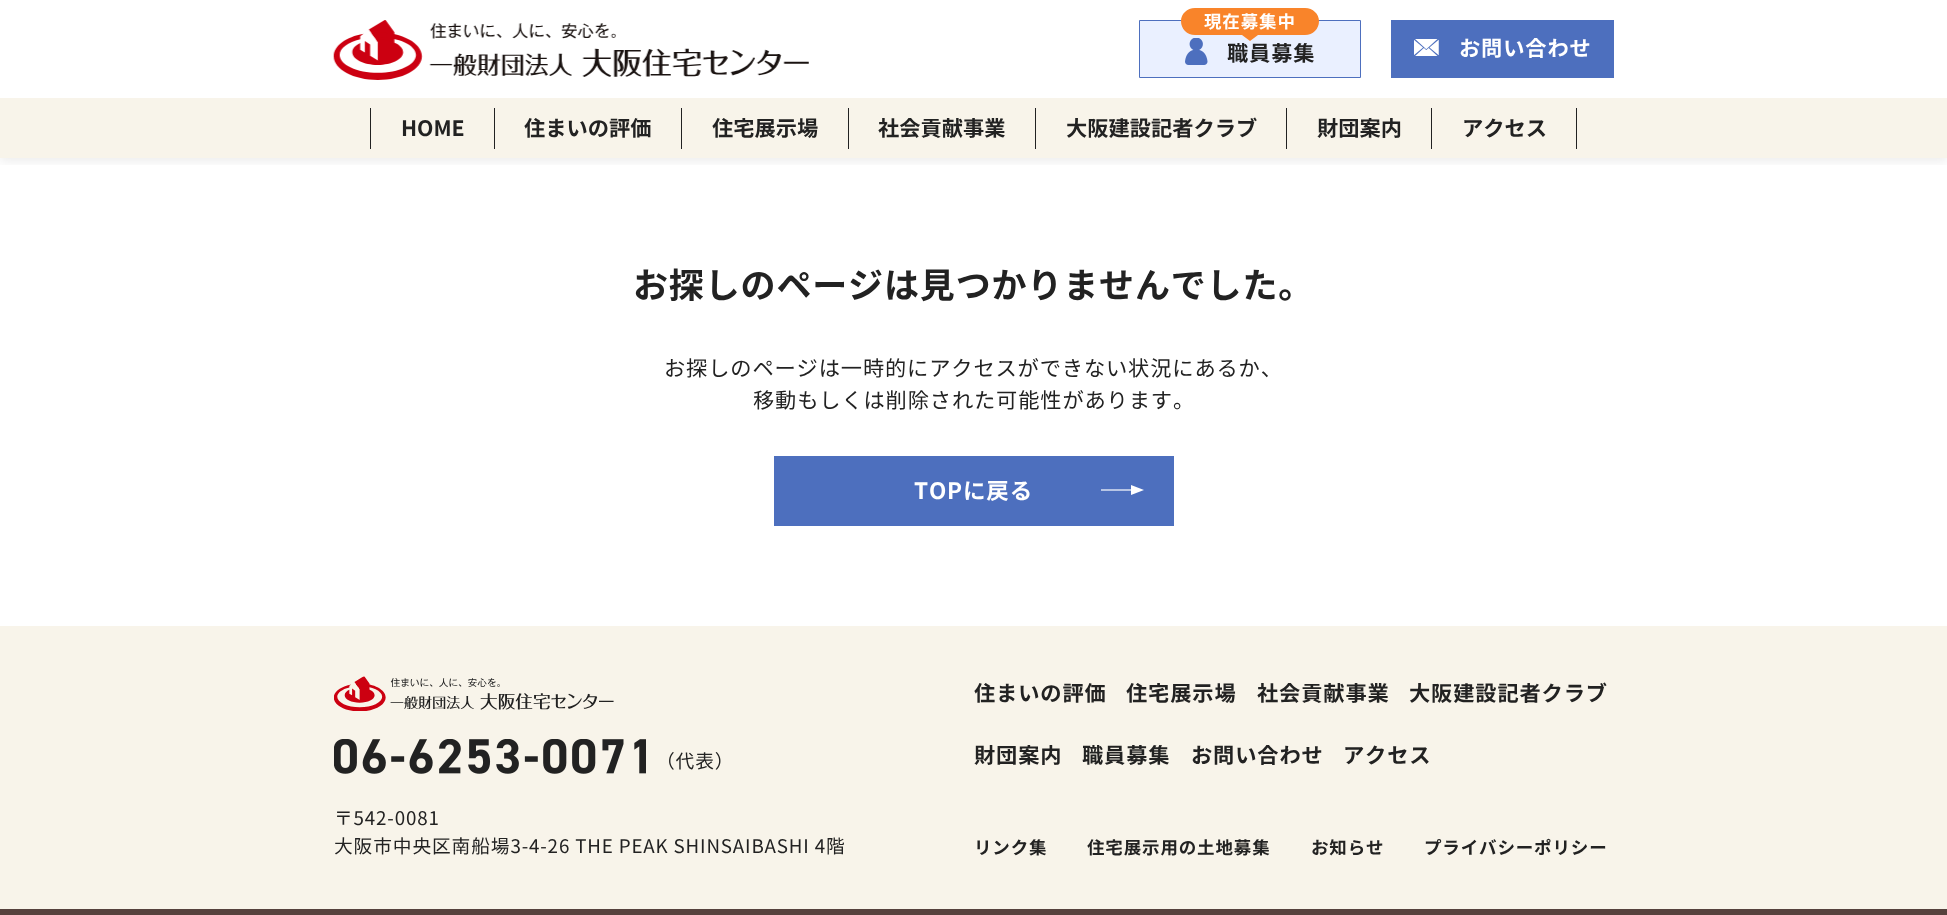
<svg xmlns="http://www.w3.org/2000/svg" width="1947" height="915">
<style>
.a{font:bold 17.5px Noto Sans JP;letter-spacing:0.85px;fill:#fff}
.b{font:bold 21.25px Noto Sans JP;letter-spacing:0.85px;fill:#222}
.c{font:bold 21.25px Noto Sans JP;letter-spacing:0.85px;fill:#fff}
.d{font:bold 21.25px Noto Sans JP;fill:#222}
.e{font:bold 35px Noto Sans JP;letter-spacing:0.85px;fill:#222}
.f{font:21.25px Noto Sans JP;letter-spacing:0.85px;fill:#222}
.g{font:bold 22.5px Noto Sans JP;letter-spacing:0.85px;fill:#fff}
.h{font:18.75px Noto Sans JP;letter-spacing:0.85px;fill:#222}
.i{font:bold 17.5px Noto Sans JP;letter-spacing:0.85px;fill:#222}
</style>
<defs>
<clipPath id="clip1"><path d="M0 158h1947v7H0z"/></clipPath>
</defs>
<rect width="100%" height="100%" fill="#fff"/>
<g clip-path="url(#clip1)">
<path fill="#00000014" filter="blur(6px)" d="M0 4h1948v157H0z"/>
</g>
<image href="1.png" x="333" y="20" width="476" height="60"/>
<path fill="#eaf0ff" stroke="#4d6fbe" d="M1139.5 20.5h221v57H1139.5z"/>
<image href="2.png" x="1185" y="38" width="23" height="27"/>
<path fill="#f9842a" d="M1242 35h-47c-8 0-14-6-14-14c0-7 6-13 14-13h110c8 0 14 6 14 13c0 8-6 14-14 14h-47l-8 6z"/>
<path fill="#4d6fbe" d="M1391 20h223v58H1391z"/>
<image href="3.png" x="1414" y="39" width="25" height="17"/>
<path fill="#f8f4ea" d="M0 98h1947v60H0z"/>
<path fill="#222" d="M370 108h1v41H370z"/>
<path fill="#222" d="M494 108h1v41H494z"/>
<path fill="#222" d="M681 108h1v41H681z"/>
<path fill="#222" d="M848 108h1v41H848z"/>
<path fill="#222" d="M1035 108h1v41H1035z"/>
<path fill="#222" d="M1286 108h1v41H1286z"/>
<path fill="#222" d="M1431 108h1v41H1431z"/>
<path fill="#222" d="M1576 108h1v41H1576z"/>
<path fill="#4d6fbe" d="M774 456h400v70H774z"/>
<path fill="#fff" d="M1144 490l-13 5v-10z"/>
<path fill="none" stroke="#fff" stroke-width="1.2" d="M1131 490h-30"/>
<path fill="#f8f4ea" d="M0 626h1947v283H0z"/>
<image href="4.png" x="334" y="676" width="280" height="35"/>
<image href="5.png" x="334" y="739" width="312" height="35"/>
<path fill="#56423d" d="M0 909h1947v6H0z"/>
<text class="a" x="1204" y="28">現在募集中</text>
<text class="b" x="1227" y="61">職員募集</text>
<text class="c" x="1459" y="56">お問い合わせ</text>
<text class="d" x="401" y="136">HOME</text>
<text class="d" x="524" y="136">住まいの評価</text>
<text class="d" x="712" y="136">住宅展示場</text>
<text class="d" x="878" y="136">社会貢献事業</text>
<text class="d" x="1066" y="136">大阪建設記者クラブ</text>
<text class="d" x="1317" y="136">財団案内</text>
<text class="d" x="1462" y="136">アクセス</text>
<text class="e" x="633" y="298">お探しのページは見つかりませんでした。</text>
<text class="f" x="664" y="376">お探しのページは一時的にアクセスができない状況にあるか、</text>
<text class="f" x="753" y="408">移動もしくは削除された可能性があります。</text>
<text class="g" x="914" y="499">TOPに戻る</text>
<text class="b" x="974" y="701">住まいの評価</text>
<text class="b" x="1126" y="701">住宅展示場</text>
<text class="b" x="1257" y="701">社会貢献事業</text>
<text class="b" x="1409" y="701">大阪建設記者クラブ</text>
<text class="b" x="974" y="763">財団案内</text>
<text class="b" x="1082" y="763">職員募集</text>
<text class="b" x="1191" y="763">お問い合わせ</text>
<text class="b" x="1343" y="763">アクセス</text>
<text class="h" x="656" y="768">（代表）</text>
<text class="h" x="334" y="825">〒542-0081</text>
<text class="h" x="334" y="853">大阪市中央区南船場3-4-26 THE PEAK SHINSAIBASHI 4階</text>
<text class="i" x="974" y="854">リンク集</text>
<text class="i" x="1087" y="854">住宅展示用の土地募集</text>
<text class="i" x="1311" y="854">お知らせ</text>
<text class="i" x="1424" y="854">プライバシーポリシー</text>
</svg>
